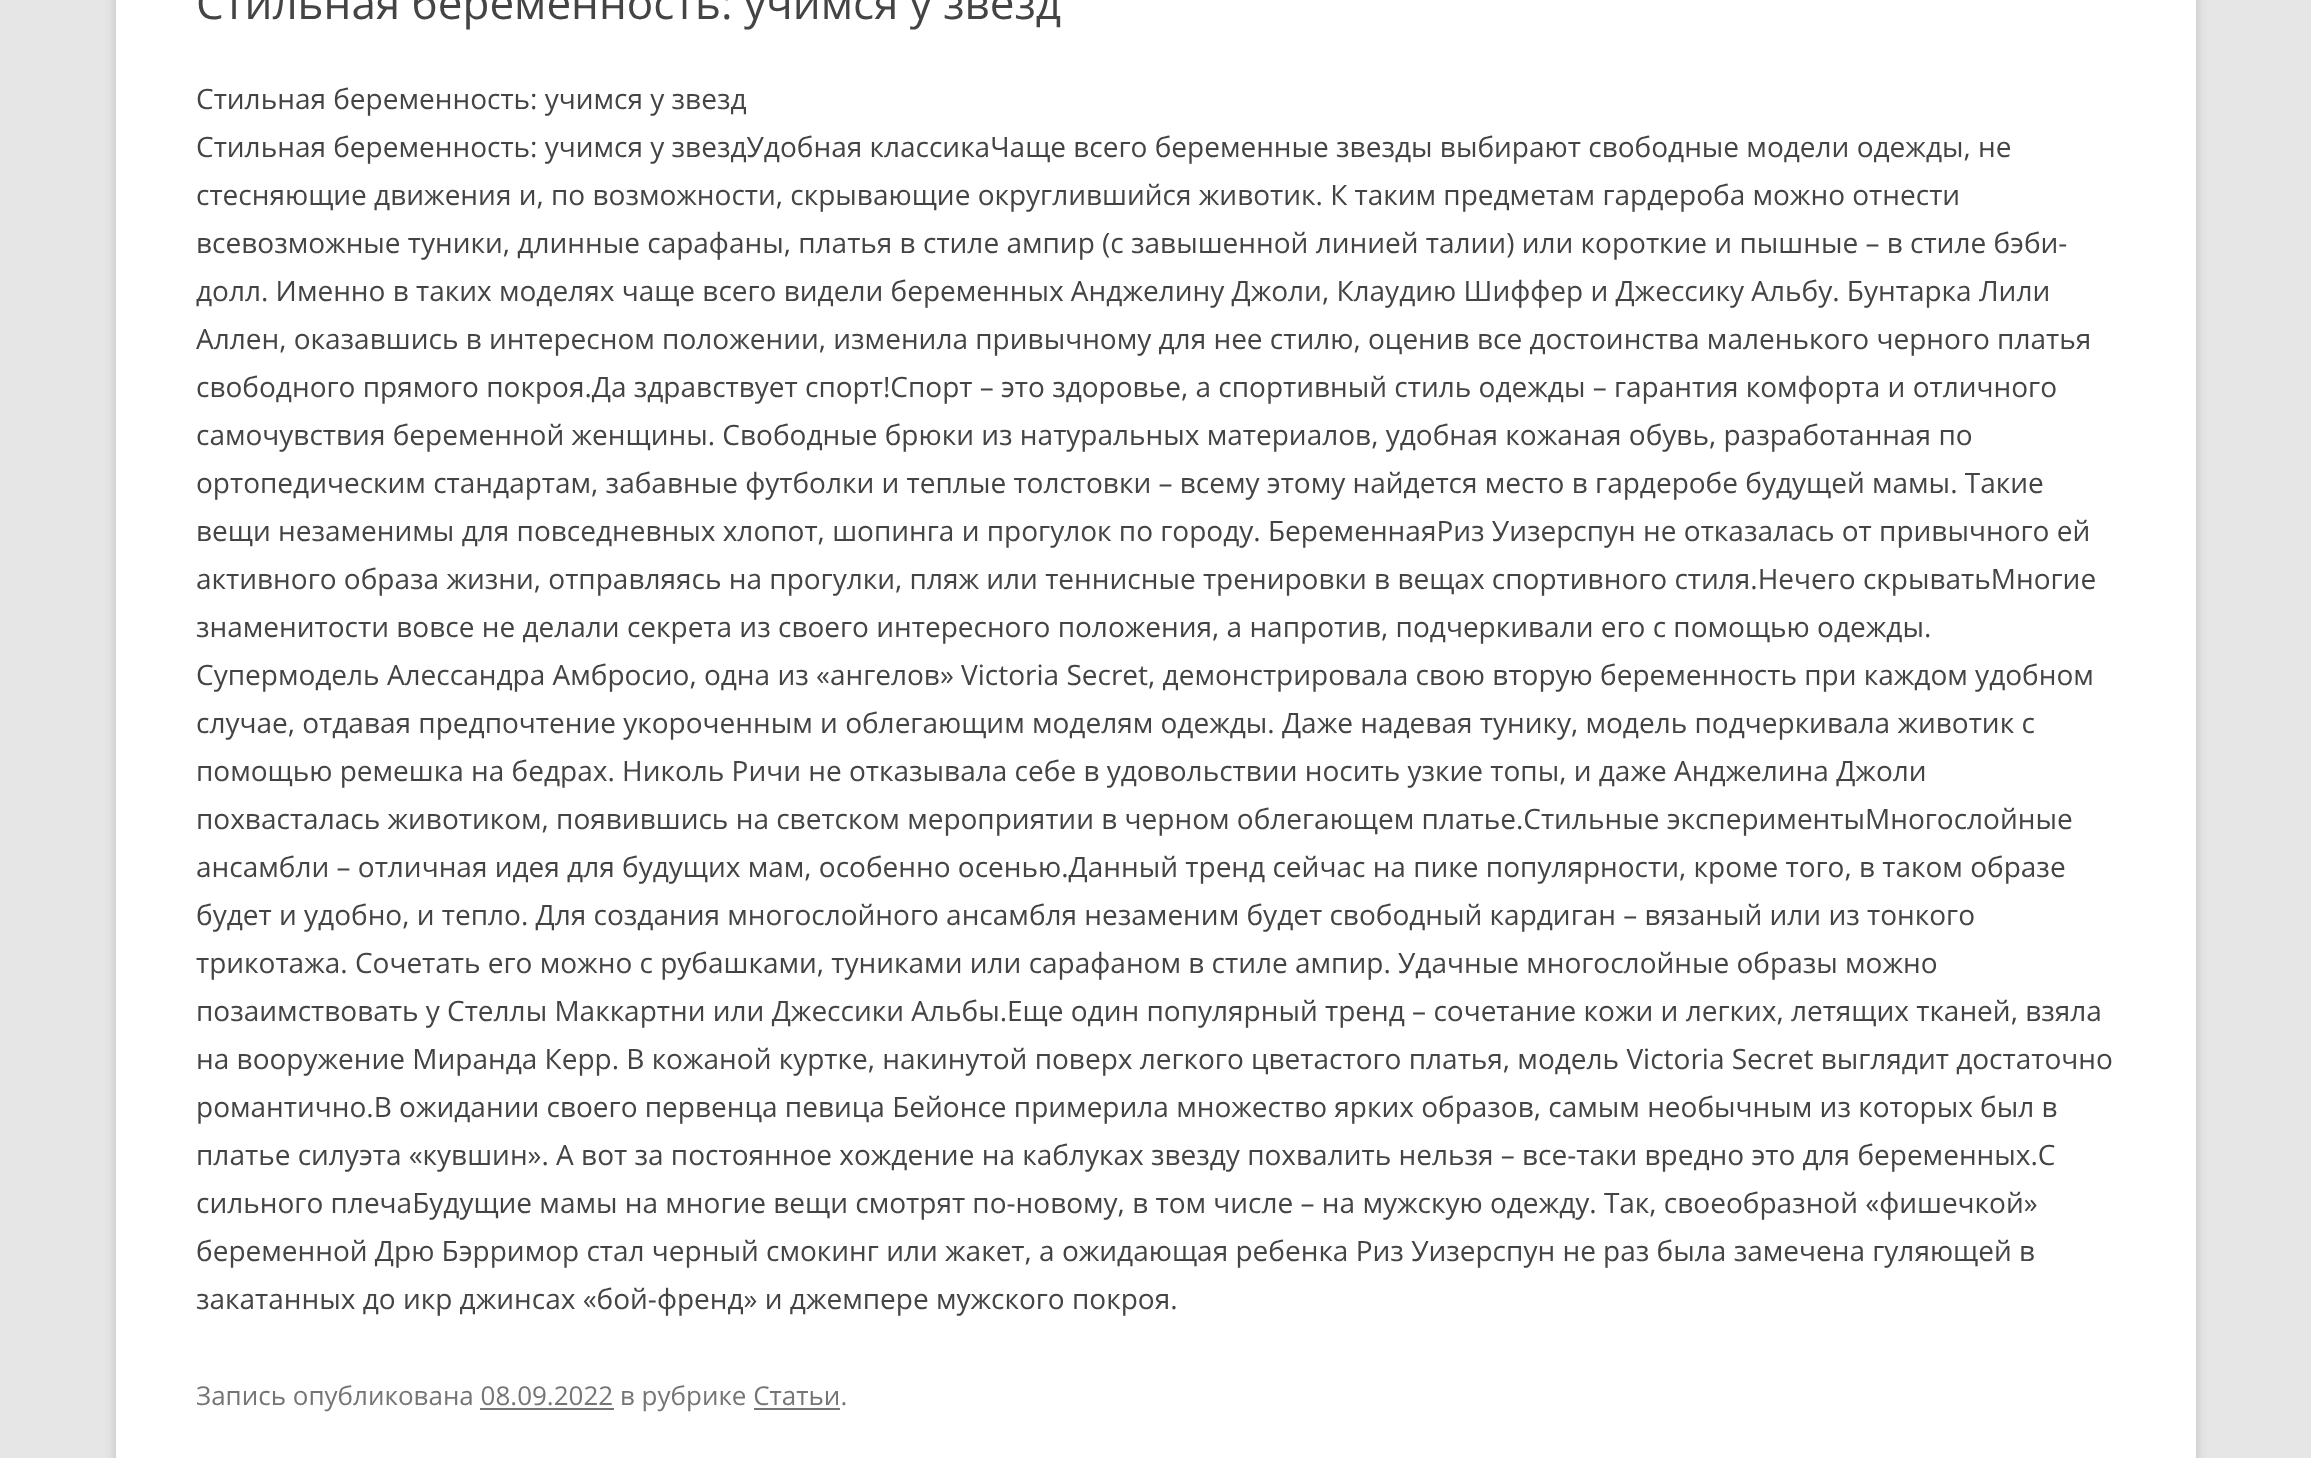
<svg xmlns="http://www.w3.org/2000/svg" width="2311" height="1458">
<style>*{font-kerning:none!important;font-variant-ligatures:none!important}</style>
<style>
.a{font:44px Open Sans;fill:#444}
.b{font:28px Open Sans;fill:#444}
.c{font:26px Open Sans;fill:#757575}
</style>
<rect width="100%" height="100%" fill="#e6e6e6"/>
<path fill="#6464644d" filter="blur(6px)" d="M116 -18h2080v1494H116z"/>
<path fill="#fff" d="M116 0h2080v1458H116z"/>
<path fill="#757575" d="M480 1408h134v2H480z"/>
<path fill="#757575" d="M754 1408h86v2H754z"/>
<text class="a" x="196" y="19">Стильная беременность: учимся у звезд</text>
<text class="b" x="196" y="109">Стильная беременность: учимся у звезд</text>
<text class="b" x="196" y="157">Стильная беременность: учимся у звездУдобная классикаЧаще всего беременные звезды выбирают свободные модели одежды, не</text>
<text class="b" x="196" y="205">стесняющие движения и, по возможности, скрывающие округлившийся животик. К таким предметам гардероба можно отнести</text>
<text class="b" x="196" y="253">всевозможные туники, длинные сарафаны, платья в стиле ампир (с завышенной линией талии) или короткие и пышные – в стиле бэби-</text>
<text class="b" x="196" y="301">долл. Именно в таких моделях чаще всего видели беременных Анджелину Джоли, Клаудию Шиффер и Джессику Альбу. Бунтарка Лили</text>
<text class="b" x="196" y="349">Аллен, оказавшись в интересном положении, изменила привычному для нее стилю, оценив все достоинства маленького черного платья</text>
<text class="b" x="196" y="397">свободного прямого покроя.Да здравствует спорт!Спорт – это здоровье, а спортивный стиль одежды – гарантия комфорта и отличного</text>
<text class="b" x="196" y="445">самочувствия беременной женщины. Свободные брюки из натуральных материалов, удобная кожаная обувь, разработанная по</text>
<text class="b" x="196" y="493">ортопедическим стандартам, забавные футболки и теплые толстовки – всему этому найдется место в гардеробе будущей мамы. Такие</text>
<text class="b" x="196" y="541">вещи незаменимы для повседневных хлопот, шопинга и прогулок по городу. БеременнаяРиз Уизерспун не отказалась от привычного ей</text>
<text class="b" x="196" y="589">активного образа жизни, отправляясь на прогулки, пляж или теннисные тренировки в вещах спортивного стиля.Нечего скрыватьМногие</text>
<text class="b" x="196" y="637">знаменитости вовсе не делали секрета из своего интересного положения, а напротив, подчеркивали его с помощью одежды.</text>
<text class="b" x="196" y="685">Супермодель Алессандра Амбросио, одна из «ангелов» Victoria Secret, демонстрировала свою вторую беременность при каждом удобном</text>
<text class="b" x="196" y="733">случае, отдавая предпочтение укороченным и облегающим моделям одежды. Даже надевая тунику, модель подчеркивала животик с</text>
<text class="b" x="196" y="781">помощью ремешка на бедрах. Николь Ричи не отказывала себе в удовольствии носить узкие топы, и даже Анджелина Джоли</text>
<text class="b" x="196" y="829">похвасталась животиком, появившись на светском мероприятии в черном облегающем платье.Стильные экспериментыМногослойные</text>
<text class="b" x="196" y="877">ансамбли – отличная идея для будущих мам, особенно осенью.Данный тренд сейчас на пике популярности, кроме того, в таком образе</text>
<text class="b" x="196" y="925">будет и удобно, и тепло. Для создания многослойного ансамбля незаменим будет свободный кардиган – вязаный или из тонкого</text>
<text class="b" x="196" y="973">трикотажа. Сочетать его можно с рубашками, туниками или сарафаном в стиле ампир. Удачные многослойные образы можно</text>
<text class="b" x="196" y="1021">позаимствовать у Стеллы Маккартни или Джессики Альбы.Еще один популярный тренд – сочетание кожи и легких, летящих тканей, взяла</text>
<text class="b" x="196" y="1069">на вооружение Миранда Керр. В кожаной куртке, накинутой поверх легкого цветастого платья, модель Victoria Secret выглядит достаточно</text>
<text class="b" x="196" y="1117">романтично.В ожидании своего первенца певица Бейонсе примерила множество ярких образов, самым необычным из которых был в</text>
<text class="b" x="196" y="1165">платье силуэта «кувшин». А вот за постоянное хождение на каблуках звезду похвалить нельзя – все-таки вредно это для беременных.С</text>
<text class="b" x="196" y="1213">сильного плечаБудущие мамы на многие вещи смотрят по-новому, в том числе – на мужскую одежду. Так, своеобразной «фишечкой»</text>
<text class="b" x="196" y="1261">беременной Дрю Бэрримор стал черный смокинг или жакет, а ожидающая ребенка Риз Уизерспун не раз была замечена гуляющей в</text>
<text class="b" x="196" y="1309">закатанных до икр джинсах «бой-френд» и джемпере мужского покроя.</text>
<text class="c" x="196" y="1405">Запись опубликована 08.09.2022 в рубрике Статьи.</text>
</svg>
